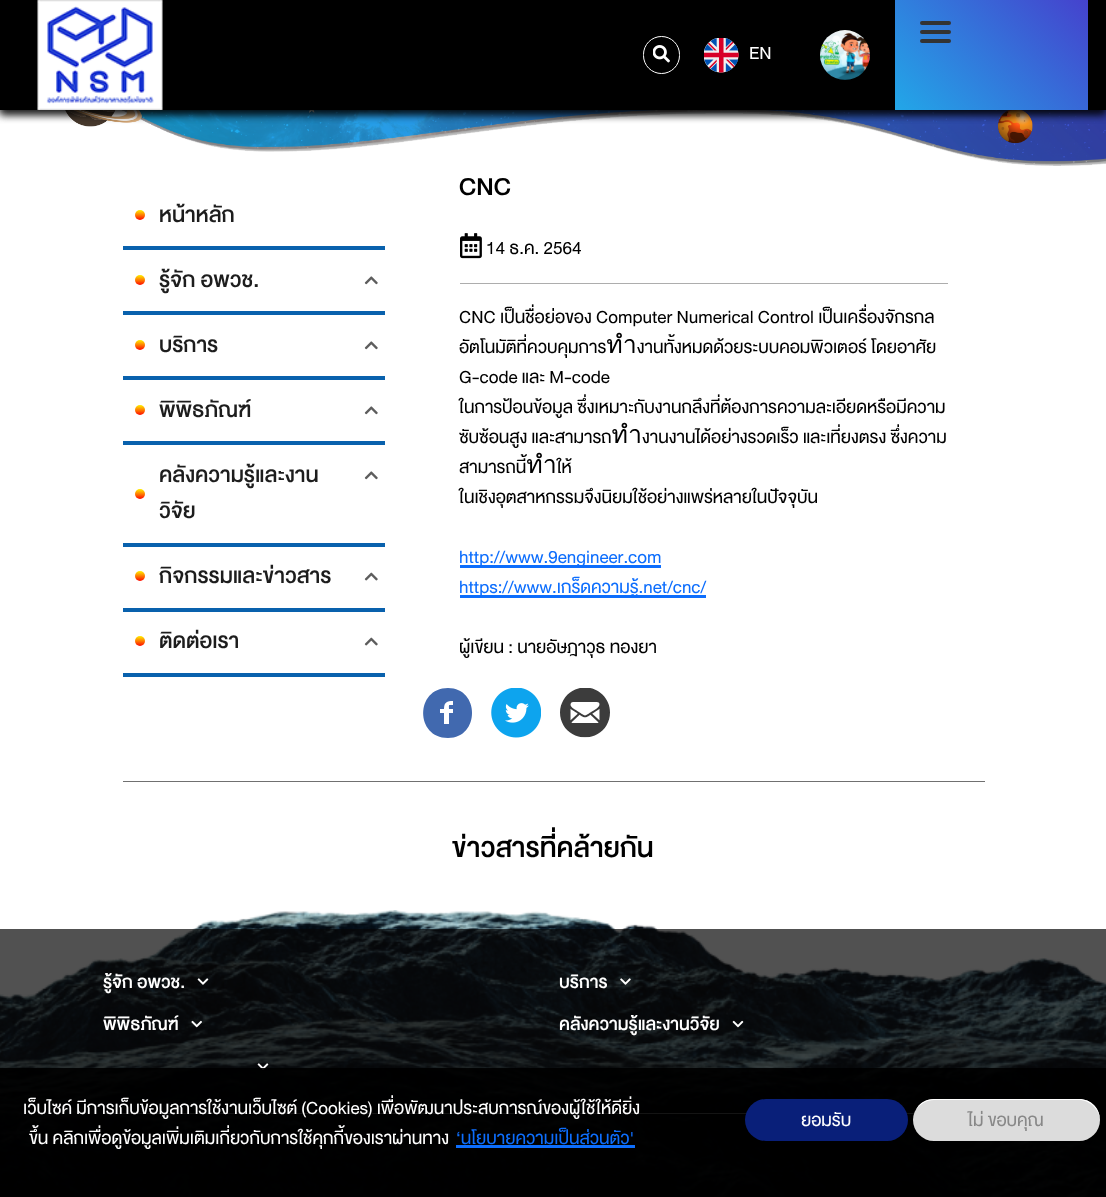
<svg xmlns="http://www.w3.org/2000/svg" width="1106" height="1197">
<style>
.a{font:25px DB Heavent;fill:#fff}
.b{font:500 30.5px DB Heavent;fill:#1d1d1d}
.c{font:500 35px DB Heavent;fill:#000}
.d{font:25px DB Heavent;fill:#000}
.e{font:25px DB Heavent;fill:#0d6efd}
.f{font:500 39px DB Heavent;fill:#000}
.g{font:500 25px DB Heavent;fill:#fff}
.h{font:25px DB Heavent;fill:#888}
</style>
<defs>
<linearGradient id="g1" gradientUnits="userSpaceOnUse" x1="916" y1="131" x2="1067" y2="-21"><stop offset="0" stop-color="#22a7e8"/><stop offset="1" stop-color="#4542cd"/></linearGradient>
<linearGradient id="g2" gradientUnits="userSpaceOnUse" x1="140" y1="210" x2="140" y2="220"><stop offset="0" stop-color="#fff000"/><stop offset="1" stop-color="#fe0900"/></linearGradient>
<linearGradient id="g3" gradientUnits="userSpaceOnUse" x1="140" y1="275" x2="140" y2="285"><stop offset="0" stop-color="#fff000"/><stop offset="1" stop-color="#fe0900"/></linearGradient>
<linearGradient id="g4" gradientUnits="userSpaceOnUse" x1="140" y1="340" x2="140" y2="350"><stop offset="0" stop-color="#fff000"/><stop offset="1" stop-color="#fe0900"/></linearGradient>
<linearGradient id="g5" gradientUnits="userSpaceOnUse" x1="140" y1="405" x2="140" y2="415"><stop offset="0" stop-color="#fff000"/><stop offset="1" stop-color="#fe0900"/></linearGradient>
<linearGradient id="g6" gradientUnits="userSpaceOnUse" x1="140" y1="489" x2="140" y2="499"><stop offset="0" stop-color="#fff000"/><stop offset="1" stop-color="#fe0900"/></linearGradient>
<linearGradient id="g7" gradientUnits="userSpaceOnUse" x1="140" y1="571" x2="140" y2="581"><stop offset="0" stop-color="#fff000"/><stop offset="1" stop-color="#fe0900"/></linearGradient>
<linearGradient id="g8" gradientUnits="userSpaceOnUse" x1="140" y1="636" x2="140" y2="646"><stop offset="0" stop-color="#fff000"/><stop offset="1" stop-color="#fe0900"/></linearGradient>
</defs>
<rect width="100%" height="100%" fill="#fff"/>
<path fill="#515151" d="M0 929h1106v71H0z"/>
<image href="5.png" x="121" y="110" width="985" height="56"/>
<image href="6.png" x="65" y="110" width="77" height="17"/>
<image href="7.png" x="998" y="110" width="35" height="33"/>
<path fill="#000000b3" filter="blur(4px)" d="M0 4h1106v110H0z"/>
<path fill="#000000b3" filter="blur(4px)" d="M0 4h1106v110H0z"/>
<path fill="#000" d="M0 0h1106v110H0z"/>
<image href="1.png" x="37" y="0" width="126" height="110"/>
<rect fill="none" stroke="#fff" x="643.5" y="36.5" width="36" height="37" rx="18"/>
<image href="2.png" x="653" y="45" width="17" height="18"/>
<image href="3.png" x="704" y="38" width="35" height="35"/>
<image href="4.png" x="820" y="30" width="50" height="50"/>
<path fill="url(#g1)" d="M895 0h193v110H895z"/>
<rect fill="#333" x="920" y="21" width="31" height="4" rx="2"/>
<rect fill="#333" x="920" y="30" width="31" height="4" rx="2"/>
<rect fill="#333" x="920" y="39" width="31" height="4" rx="2"/>
<path fill="#0961ad" d="M123 246h262v4H123z"/>
<circle fill="url(#g2)" cx="140" cy="215" r="5"/>
<path fill="#0961ad" d="M123 311h262v4H123z"/>
<circle fill="url(#g3)" cx="140" cy="280" r="5"/>
<image href="8.png" x="364" y="276" width="14" height="9"/>
<path fill="#0961ad" d="M123 376h262v4H123z"/>
<circle fill="url(#g4)" cx="140" cy="345" r="5"/>
<image href="8.png" x="364" y="341" width="14" height="9"/>
<path fill="#0961ad" d="M123 441h262v4H123z"/>
<circle fill="url(#g5)" cx="140" cy="410" r="5"/>
<image href="8.png" x="364" y="406" width="14" height="9"/>
<path fill="#0961ad" d="M123 543h262v4H123z"/>
<image href="8.png" x="364" y="471" width="14" height="9"/>
<circle fill="url(#g6)" cx="140" cy="494" r="5"/>
<path fill="#0961ad" d="M123 608h262v4H123z"/>
<circle fill="url(#g7)" cx="140" cy="576" r="5"/>
<image href="9.png" x="364" y="572" width="14" height="9"/>
<path fill="#0961ad" d="M123 673h262v4H123z"/>
<circle fill="url(#g8)" cx="140" cy="641" r="5"/>
<image href="9.png" x="364" y="637" width="14" height="9"/>
<path fill="#adadad" d="M460 283h488v1H460z"/>
<image href="10.png" x="460" y="233" width="22" height="26"/>
<path fill="#0d6efd" d="M460 565h201v3H460z"/>
<path fill="#0d6efd" d="M460 595h246v3H460z"/>
<path fill="#4169af" d="M448 688c-33 0-33 50 0 50c32 0 32-50 0-50zm5 17c-5 0-4-1-4 4h4v4h-4v11h-5v-11h-4v-4h4c0-7 3-8 9-8z"/>
<image href="11.png" x="491" y="688" width="50" height="50"/>
<image href="12.png" x="560" y="688" width="50" height="50"/>
<path fill="#707070" d="M123 781h862v1H123z"/>
<image href="13.png" x="0" y="910" width="1106" height="287"/>
<image href="14.png" x="197" y="978" width="12" height="7"/>
<image href="15.png" x="620" y="978" width="11" height="7"/>
<image href="16.png" x="191" y="1020" width="11" height="8"/>
<image href="17.png" x="732" y="1020" width="12" height="8"/>
<image href="18.png" x="257" y="1063" width="12" height="7"/>
<path fill="#ccc" d="M104 1113h811v1H104z"/>
<path fill="#000000e6" d="M0 1068h1106v129H0z"/>
<path fill="#0d6efd" d="M456 1145h179v3H456z"/>
<rect fill="#091f79" x="745" y="1099" width="163" height="42" rx="21"/>
<rect fill="#dcdcdc" x="913" y="1099" width="187" height="42" rx="21"/>
<path fill="#fff" d="M934 1100h145c11 0 21 10 21 21v-1c0-12-9-21-21-21h-145c-8 0-15 4-18 11c4-6 11-10 18-10z"/>
<text class="a" x="749" y="59">EN</text>
<text class="b" x="159" y="222">หน้าหลัก</text>
<text class="b" x="159" y="287">รู้จัก อพวช.</text>
<text class="b" x="159" y="352">บริการ</text>
<text class="b" x="159" y="417">พิพิธภัณฑ์</text>
<text class="b" x="159" y="482">คลังความรู้และงาน</text>
<text class="b" x="159" y="518">วิจัย</text>
<text class="b" x="159" y="583">กิจกรรมและข่าวสาร</text>
<text class="b" x="159" y="648">ติดต่อเรา</text>
<text class="c" x="459" y="195">CNC</text>
<text class="d" x="486" y="254">14 ธ.ค. 2564</text>
<text class="d" x="459" y="323">CNC เป็นชื่อย่อของ Computer Numerical Control เป็นเครื่องจักรกล</text>
<text class="d" x="459" y="353">อัตโนมัติที่ควบคุมการทำงานทั้งหมดด้วยระบบคอมพิวเตอร์ โดยอาศัย</text>
<text class="d" x="459" y="383">G-code และ M-code</text>
<text class="d" x="459" y="413">ในการป้อนข้อมูล ซึ่งเหมาะกับงานกลึงที่ต้องการความละเอียดหรือมีความ</text>
<text class="d" x="459" y="443">ซับซ้อนสูง และสามารถทำงานงานได้อย่างรวดเร็ว และเที่ยงตรง ซึ่งความ</text>
<text class="d" x="459" y="473">สามารถนี้ทำให้</text>
<text class="d" x="459" y="503">ในเชิงอุตสาหกรรมจึงนิยมใช้อย่างแพร่หลายในปัจจุบัน</text>
<text class="e" x="459" y="563">http://www.9engineer.com</text>
<text class="e" x="459" y="593">https://www.เกร็ดความรู้.net/cnc/</text>
<text class="d" x="459" y="653">ผู้เขียน : นายอัษฎาวุธ ทองยา</text>
<text class="f" x="452" y="857">ข่าวสารที่่คล้ายกัน</text>
<text class="g" x="103" y="988">รู้จัก อพวช.</text>
<text class="g" x="559" y="988">บริการ</text>
<text class="g" x="103" y="1030">พิพิธภัณฑ์</text>
<text class="g" x="559" y="1030">คลังความรู้และงานวิจัย</text>
<text class="a" x="23" y="1114">เว็บไซค์ มีการเก็บข้อมูลการใช้งานเว็บไซต์ (Cookies) เพื่อพัฒนาประสบการณ์ของผู้ใช้ให้ดียิ่ง</text>
<text class="a" x="29" y="1144">ขึ้น คลิกเพื่อดูข้อมูลเพิ่มเติมเกี่ยวกับการใช้คุกกี้ของเราผ่านทาง</text>
<text class="e" x="456" y="1144">‘นโยบายความเป็นส่วนตัว'</text>
<text class="a" x="801" y="1126">ยอมรับ</text>
<text class="h" x="968" y="1126">ไม่ ขอบคุณ</text>
</svg>
